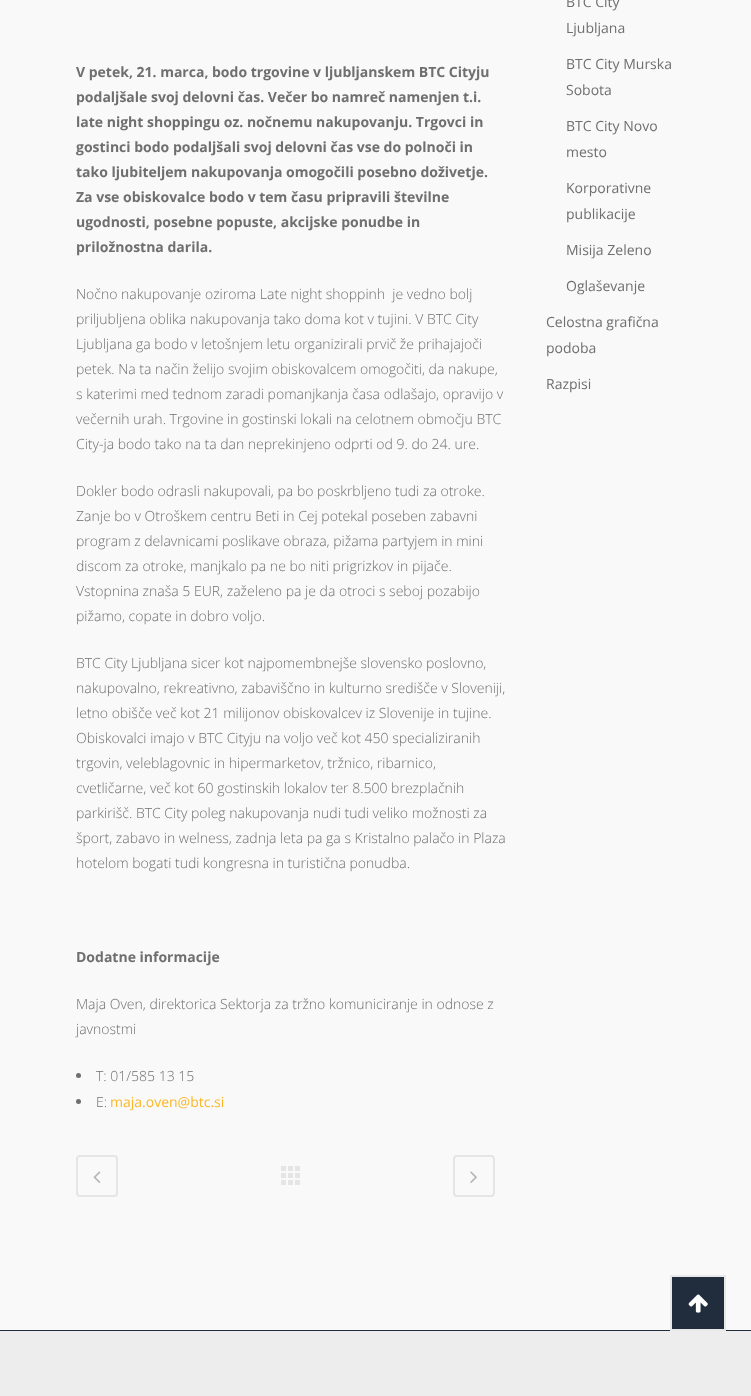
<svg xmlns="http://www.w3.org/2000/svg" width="751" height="1396">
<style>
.a{font:bold 14px Open Sans;fill:#706f6f}
.b{font:300 14px Open Sans;fill:#706f6f}
.c{font:14px Open Sans;fill:#fcb727}
.d{font:14px Open Sans;fill:#706f6f}
</style>
<rect width="100%" height="100%" fill="#f9f9f9"/>
<circle fill="#706f6f" cx="78.5" cy="1075.5" r="2.5"/>
<circle fill="#706f6f" cx="78.5" cy="1101.5" r="2.5"/>
<rect fill="none" stroke="#e5e5e5" stroke-width="2" x="77" y="1156" width="40" height="40" rx="3"/>
<image href="1.png" x="93" y="1171" width="8" height="12"/>
<image href="2.png" x="281" y="1166" width="19" height="19"/>
<rect fill="none" stroke="#e5e5e5" stroke-width="2" x="454" y="1156" width="40" height="40" rx="3"/>
<image href="3.png" x="470" y="1171" width="7" height="12"/>
<path fill="#212d3d" d="M0 1330h751v1H0z"/>
<path fill="#212d3d" stroke="#e8e8e8" stroke-width="2" d="M671 1276h54v54H671z"/>
<image href="4.png" x="688" y="1294" width="20" height="19"/>
<path fill="#ededed" d="M0 1331h751v65H0z"/>
<text class="a" x="76" y="77">V petek, 21. marca, bodo trgovine v ljubljanskem BTC Cityju</text>
<text class="a" x="76" y="102">podaljšale svoj delovni čas. Večer bo namreč namenjen t.i.</text>
<text class="a" x="76" y="127">late night shoppingu oz. nočnemu nakupovanju. Trgovci in</text>
<text class="a" x="76" y="152">gostinci bodo podaljšali svoj delovni čas vse do polnoči in</text>
<text class="a" x="76" y="177">tako ljubiteljem nakupovanja omogočili posebno doživetje.</text>
<text class="a" x="76" y="202">Za vse obiskovalce bodo v tem času pripravili številne</text>
<text class="a" x="76" y="227">ugodnosti, posebne popuste, akcijske ponudbe in</text>
<text class="a" x="76" y="252">priložnostna darila.</text>
<text class="b" xml:space="preserve" x="76" y="299">Nočno nakupovanje oziroma Late night shoppinh  je vedno bolj</text>
<text class="b" x="76" y="324">priljubljena oblika nakupovanja tako doma kot v tujini. V BTC City</text>
<text class="b" x="76" y="349">Ljubljana ga bodo v letošnjem letu organizirali prvič že prihajajoči</text>
<text class="b" x="76" y="374">petek. Na ta način želijo svojim obiskovalcem omogočiti, da nakupe,</text>
<text class="b" x="76" y="399">s katerimi med tednom zaradi pomanjkanja časa odlašajo, opravijo v</text>
<text class="b" x="76" y="424">večernih urah. Trgovine in gostinski lokali na celotnem območju BTC</text>
<text class="b" x="76" y="449">City-ja bodo tako na ta dan neprekinjeno odprti od 9. do 24. ure.</text>
<text class="b" x="76" y="496">Dokler bodo odrasli nakupovali, pa bo poskrbljeno tudi za otroke.</text>
<text class="b" x="76" y="521">Zanje bo v Otroškem centru Beti in Cej potekal poseben zabavni</text>
<text class="b" x="76" y="546">program z delavnicami poslikave obraza, pižama partyjem in mini</text>
<text class="b" x="76" y="571">discom za otroke, manjkalo pa ne bo niti prigrizkov in pijače.</text>
<text class="b" x="76" y="596">Vstopnina znaša 5 EUR, zaželeno pa je da otroci s seboj pozabijo</text>
<text class="b" x="76" y="621">pižamo, copate in dobro voljo.</text>
<text class="b" x="76" y="668">BTC City Ljubljana sicer kot najpomembnejše slovensko poslovno,</text>
<text class="b" x="76" y="693">nakupovalno, rekreativno, zabaviščno in kulturno središče v Sloveniji,</text>
<text class="b" x="76" y="718">letno obišče več kot 21 milijonov obiskovalcev iz Slovenije in tujine.</text>
<text class="b" x="76" y="743">Obiskovalci imajo v BTC Cityju na voljo več kot 450 specializiranih</text>
<text class="b" x="76" y="768">trgovin, veleblagovnic in hipermarketov, tržnico, ribarnico,</text>
<text class="b" x="76" y="793">cvetličarne, več kot 60 gostinskih lokalov ter 8.500 brezplačnih</text>
<text class="b" x="76" y="818">parkirišč. BTC City poleg nakupovanja nudi tudi veliko možnosti za</text>
<text class="b" x="76" y="843">šport, zabavo in welness, zadnja leta pa ga s Kristalno palačo in Plaza</text>
<text class="b" x="76" y="868">hotelom bogati tudi kongresna in turistična ponudba.</text>
<text class="a" x="76" y="962">Dodatne informacije</text>
<text class="b" x="76" y="1009">Maja Oven, direktorica Sektorja za tržno komuniciranje in odnose z</text>
<text class="b" x="76" y="1034">javnostmi</text>
<text class="b" x="96" y="1081">T: 01/585 13 15</text>
<text class="b" x="96" y="1107">E:</text>
<text class="c" x="110" y="1107">maja.oven@btc.si</text>
<text class="d" x="566" y="7">BTC City</text>
<text class="d" x="566" y="33">Ljubljana</text>
<text class="d" x="566" y="69">BTC City Murska</text>
<text class="d" x="566" y="95">Sobota</text>
<text class="d" x="566" y="131">BTC City Novo</text>
<text class="d" x="566" y="157">mesto</text>
<text class="d" x="566" y="193">Korporativne</text>
<text class="d" x="566" y="219">publikacije</text>
<text class="d" x="566" y="255">Misija Zeleno</text>
<text class="d" x="566" y="291">Oglaševanje</text>
<text class="d" x="546" y="327">Celostna grafična</text>
<text class="d" x="546" y="353">podoba</text>
<text class="d" x="546" y="389">Razpisi</text>
</svg>
